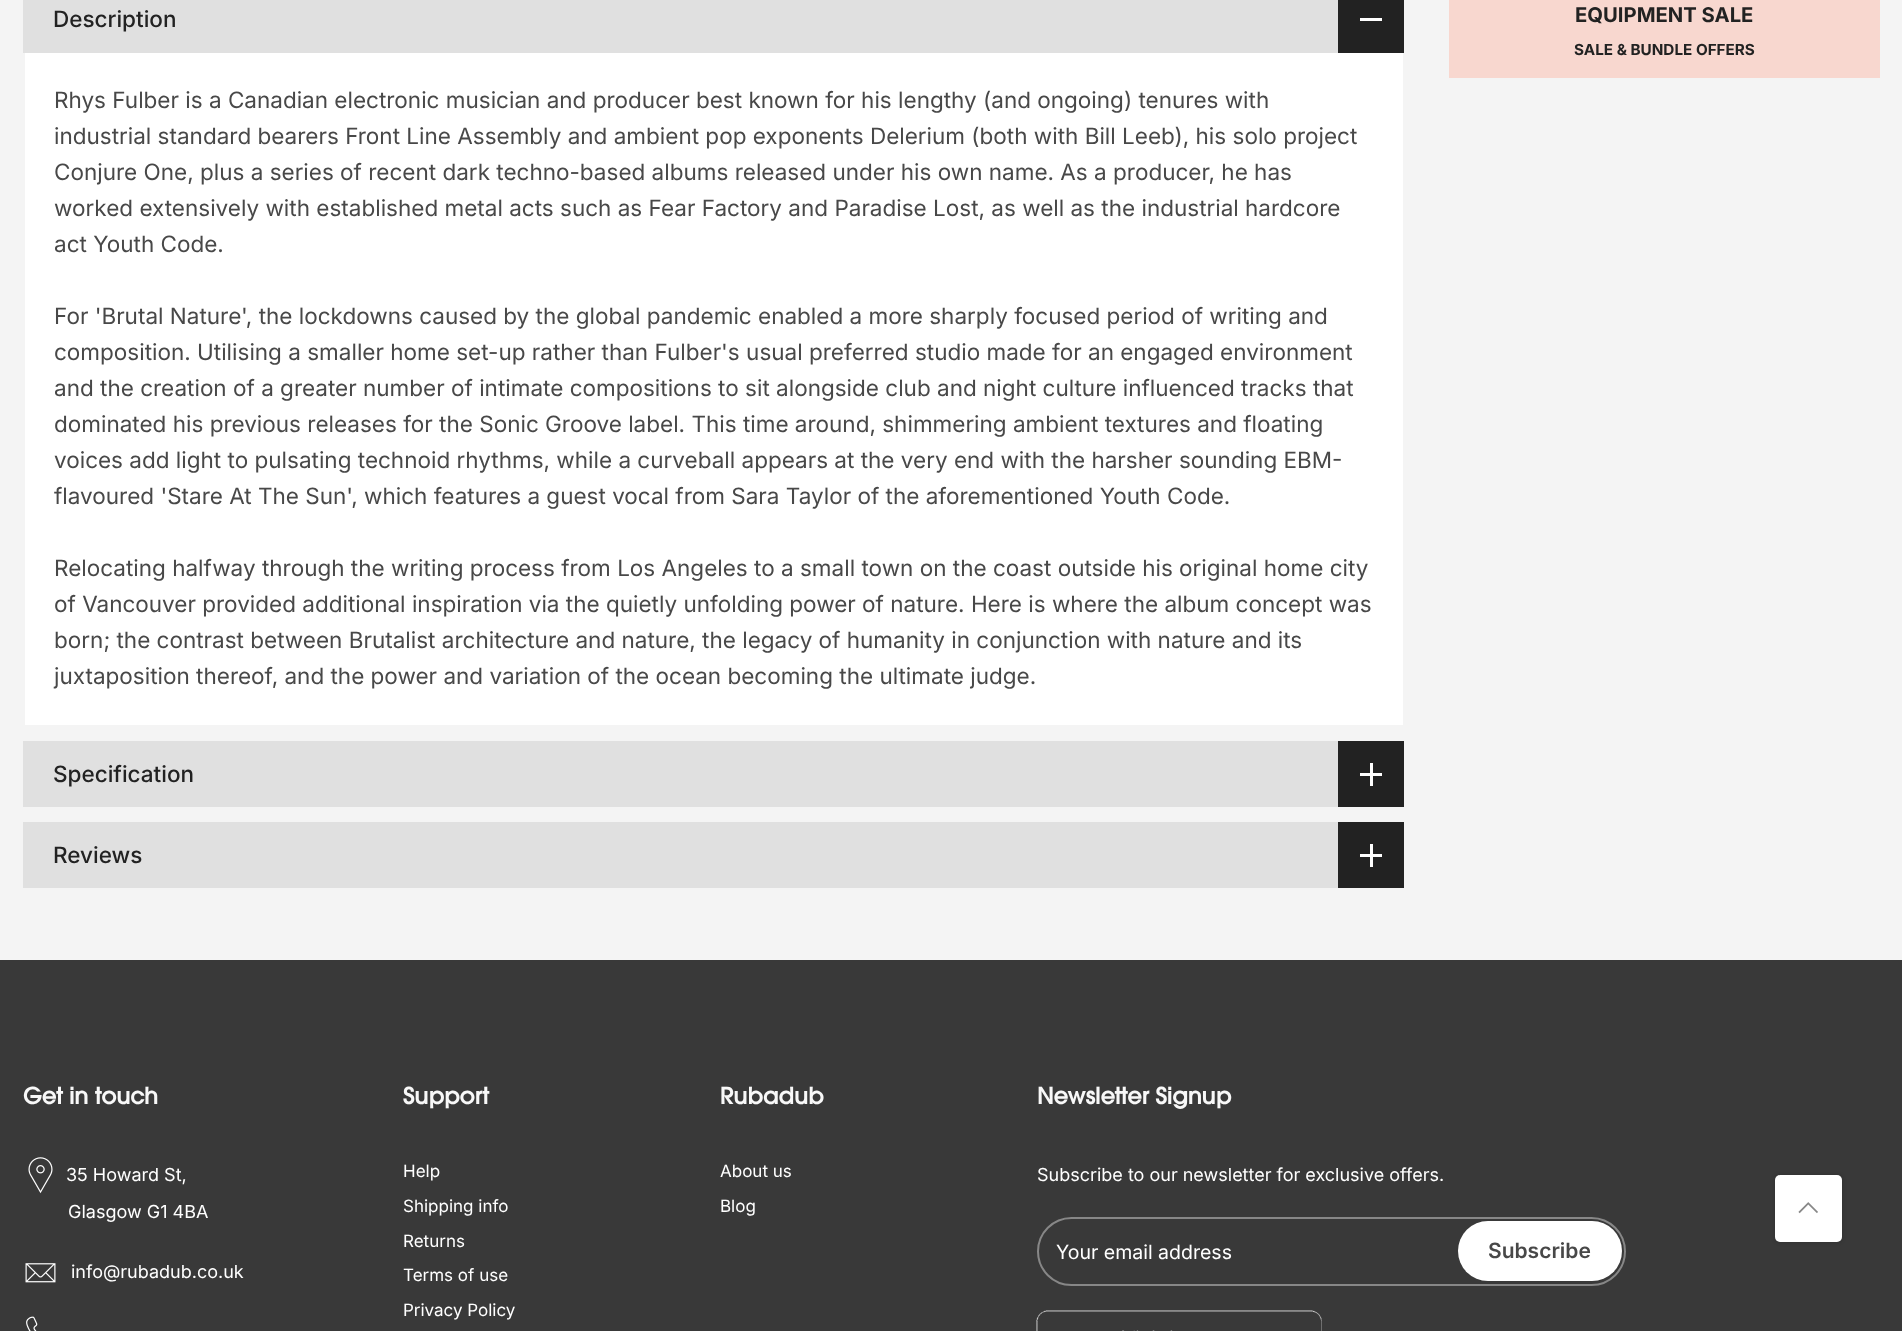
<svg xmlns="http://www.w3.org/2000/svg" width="1902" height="1331">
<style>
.a{font:500 22.5px Inter;fill:#222}
.b{font:22.5px Inter;fill:#484848}
.c{font:bold 20.25px Inter;fill:#222}
.d{font:bold 15.25px Inter;fill:#222}
.e{font:bold 22.5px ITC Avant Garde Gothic;fill:#f8f8f8}
.f{font:18px Inter;fill:#fff}
.g{font:17px Inter;fill:#fff}
.h{font:19.5px Inter;fill:#fff}
.i{font:600 21px Inter;fill:#484848}
</style>
<rect width="100%" height="100%" fill="#f4f4f4"/>
<path fill="#e0e0e0" d="M23 0h1315v53H23z"/>
<path fill="#222" d="M1338 0h66v53H1338z"/>
<path fill="#fff" d="M1360 18h22v3H1360z"/>
<path fill="#fff" d="M25 53h1378v672H25z"/>
<path fill="#e0e0e0" d="M23 741h1315v66H23z"/>
<path fill="#222" d="M1338 741h66v66H1338z"/>
<path fill="#fff" d="M1370 763h3v23H1370z"/>
<path fill="#fff" d="M1360 773h22v3H1360z"/>
<path fill="#e0e0e0" d="M23 822h1315v66H23z"/>
<path fill="#222" d="M1338 822h66v66H1338z"/>
<path fill="#fff" d="M1370 844h3v23H1370z"/>
<path fill="#fff" d="M1360 854h22v3H1360z"/>
<path fill="#f8d7cf" d="M1449 0h431v78H1449z"/>
<path fill="#393939" d="M0 960h1902v371H0z"/>
<image href="1.png" x="28" y="1157" width="25" height="37"/>
<image href="2.png" x="25" y="1263" width="31" height="20"/>
<image href="3.png" x="26" y="1316" width="12" height="15"/>
<rect fill="none" stroke="#878787" stroke-width="2" x="1038" y="1218" width="587" height="67" rx="33.5"/>
<rect fill="#fff" x="1458" y="1221" width="164" height="60" rx="30"/>
<image href="4.png" x="1036" y="1310" width="286" height="21"/>
<rect fill="#00000033" filter="blur(2px)" x="1775" y="1175" width="67" height="67" rx="5"/>
<rect fill="#fff" x="1775" y="1175" width="67" height="67" rx="5"/>
<image href="5.png" x="1798" y="1202" width="20" height="12"/>
<text class="a" x="53" y="27">Description</text>
<text class="b" x="54" y="108">Rhys Fulber is a Canadian electronic musician and producer best known for his lengthy (and ongoing) tenures with</text>
<text class="b" x="54" y="144">industrial standard bearers Front Line Assembly and ambient pop exponents Delerium (both with Bill Leeb), his solo project</text>
<text class="b" x="54" y="180">Conjure One, plus a series of recent dark techno-based albums released under his own name. As a producer, he has</text>
<text class="b" x="54" y="216">worked extensively with established metal acts such as Fear Factory and Paradise Lost, as well as the industrial hardcore</text>
<text class="b" x="54" y="252">act Youth Code.</text>
<text class="b" x="54" y="324">For 'Brutal Nature', the lockdowns caused by the global pandemic enabled a more sharply focused period of writing and</text>
<text class="b" x="54" y="360">composition. Utilising a smaller home set-up rather than Fulber's usual preferred studio made for an engaged environment</text>
<text class="b" x="54" y="396">and the creation of a greater number of intimate compositions to sit alongside club and night culture influenced tracks that</text>
<text class="b" x="54" y="432">dominated his previous releases for the Sonic Groove label. This time around, shimmering ambient textures and floating</text>
<text class="b" x="54" y="468">voices add light to pulsating technoid rhythms, while a curveball appears at the very end with the harsher sounding EBM-</text>
<text class="b" x="54" y="504">flavoured 'Stare At The Sun', which features a guest vocal from Sara Taylor of the aforementioned Youth Code.</text>
<text class="b" x="54" y="576">Relocating halfway through the writing process from Los Angeles to a small town on the coast outside his original home city</text>
<text class="b" x="54" y="612">of Vancouver provided additional inspiration via the quietly unfolding power of nature. Here is where the album concept was</text>
<text class="b" x="54" y="648">born; the contrast between Brutalist architecture and nature, the legacy of humanity in conjunction with nature and its</text>
<text class="b" x="54" y="684">juxtaposition thereof, and the power and variation of the ocean becoming the ultimate judge.</text>
<text class="a" x="53" y="782">Specification</text>
<text class="a" x="53" y="863">Reviews</text>
<text class="c" x="1575" y="22">EQUIPMENT SALE</text>
<text class="d" x="1574" y="55">SALE &amp; BUNDLE OFFERS</text>
<text class="e" x="23" y="1104">Get in touch</text>
<text class="f" x="66" y="1181">35 Howard St,</text>
<text class="f" x="68" y="1218">Glasgow G1 4BA</text>
<text class="f" x="71" y="1278">info@rubadub.co.uk</text>
<text class="e" x="403" y="1104">Support</text>
<text class="g" x="403" y="1177">Help</text>
<text class="g" x="403" y="1212">Shipping info</text>
<text class="g" x="403" y="1247">Returns</text>
<text class="g" x="403" y="1281">Terms of use</text>
<text class="g" x="403" y="1316">Privacy Policy</text>
<text class="e" x="720" y="1104">Rubadub</text>
<text class="g" x="720" y="1177">About us</text>
<text class="g" x="720" y="1212">Blog</text>
<text class="e" x="1037" y="1104">Newsletter Signup</text>
<text class="f" x="1037" y="1181">Subscribe to our newsletter for exclusive offers.</text>
<text class="h" x="1056" y="1259">Your email address</text>
<text class="i" x="1488" y="1258">Subscribe</text>
</svg>
